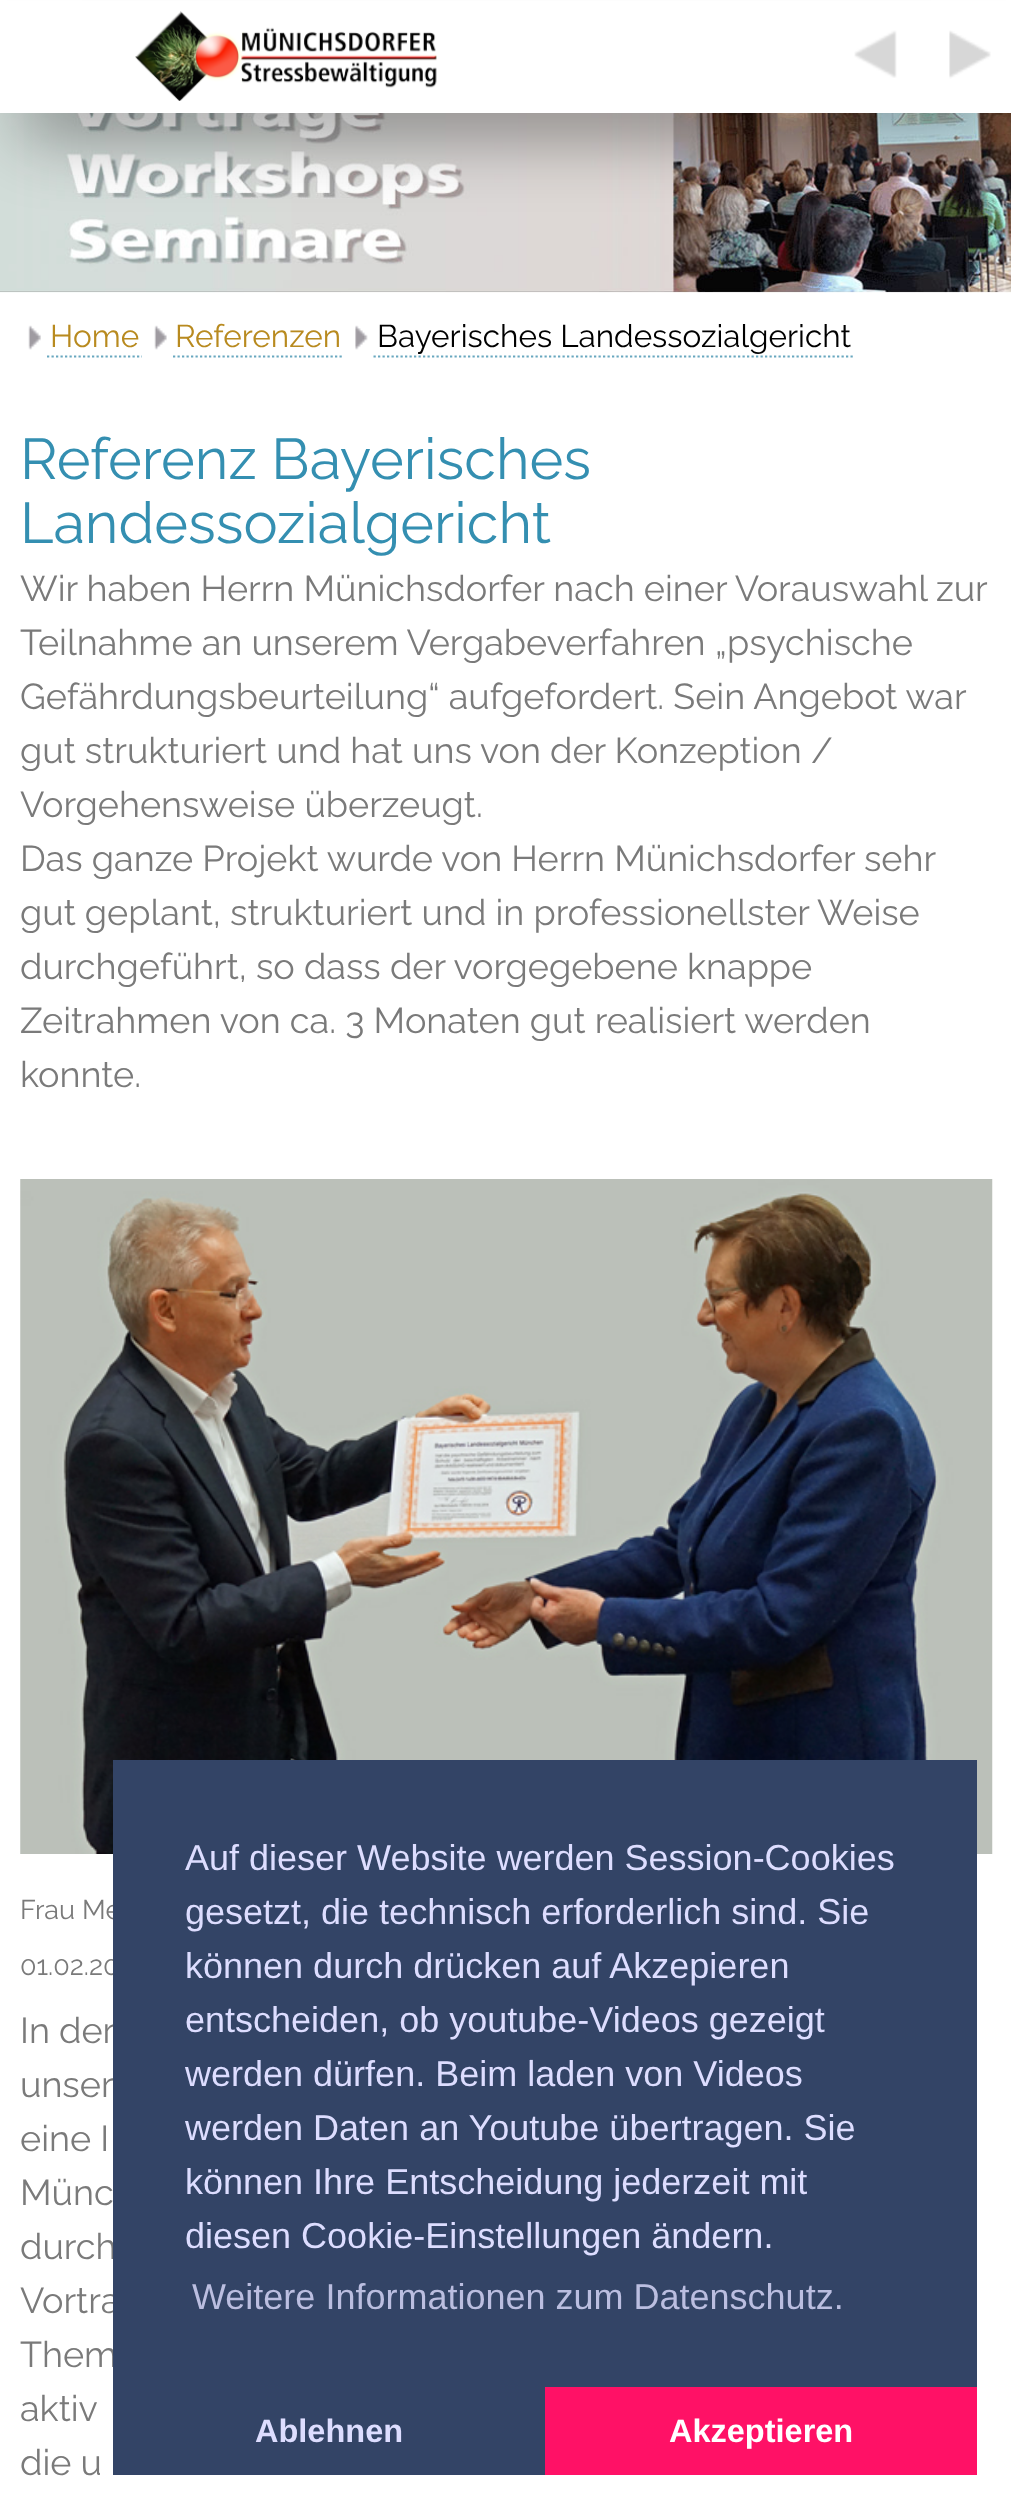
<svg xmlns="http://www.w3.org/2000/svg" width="1011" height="2509">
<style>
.a{font:31.5px Raleway;fill:#b88a1f}
.b{font:31.5px Raleway;fill:#000}
.c{font:57.5px Raleway;fill:#348fb1}
.d{font:36px Raleway;fill:#7a7a7a}
.e{font:27px Raleway;fill:#7a7a7a}
.f{font:36px Liberation Sans;fill:#ddf}
.g{font:36px Liberation Sans;fill:#bbbee0}
.h{font:bold 32.5px Liberation Sans;fill:#ddf}
.i{font:bold 32.5px Liberation Sans;fill:#fff}
</style>
<rect width="100%" height="100%" fill="#fff"/>
<image href="4.png" x="0" y="113" width="1011" height="180"/>
<path fill="#00000066" filter="blur(34px)" d="M23 68h967v67H23z"/>
<path fill="#fff" d="M0 1h1011v112H0z"/>
<image href="1.png" x="135" y="11" width="302" height="90"/>
<image href="2.png" x="854" y="30" width="43" height="48"/>
<image href="3.png" x="949" y="30" width="42" height="49"/>
<image href="5.png" x="28" y="325" width="13" height="25"/>
<path fill="none" stroke="#68a7bf" stroke-width="2.2" stroke-dasharray="2.25 2.25" d="M47 356.5h95"/>
<image href="6.png" x="154" y="325" width="13" height="25"/>
<path fill="none" stroke="#68a7bf" stroke-width="2.2" stroke-dasharray="2.25 2.25" d="M173 356.5h169"/>
<image href="7.png" x="355" y="325" width="13" height="25"/>
<path fill="none" stroke="#68a7bf" stroke-width="2.2" stroke-dasharray="2.25 2.25" d="M373.5 356.5h479.5"/>
<image href="8.png" x="20" y="1179" width="973" height="675"/>
<text class="a" x="50" y="347">Home</text>
<text class="a" x="175" y="347">Referenzen</text>
<text class="b" x="377" y="347">Bayerisches Landessozialgericht</text>
<text class="c" x="20" y="479">Referenz Bayerisches</text>
<text class="c" x="20" y="543">Landessozialgericht</text>
<text class="d" x="20" y="601">Wir haben Herrn Münichsdorfer nach einer Vorauswahl zur</text>
<text class="d" x="20" y="655">Teilnahme an unserem Vergabeverfahren „psychische</text>
<text class="d" x="20" y="709">Gefährdungsbeurteilung“ aufgefordert. Sein Angebot war</text>
<text class="d" x="20" y="763">gut strukturiert und hat uns von der Konzeption /</text>
<text class="d" x="20" y="817">Vorgehensweise überzeugt.</text>
<text class="d" x="20" y="871">Das ganze Projekt wurde von Herrn Münichsdorfer sehr</text>
<text class="d" x="20" y="925">gut geplant, strukturiert und in professionellster Weise</text>
<text class="d" x="20" y="979">durchgeführt, so dass der vorgegebene knappe</text>
<text class="d" x="20" y="1033">Zeitrahmen von ca. 3 Monaten gut realisiert werden</text>
<text class="d" x="20" y="1087">konnte.</text>
<text class="e" x="20" y="1919">Frau Me</text>
<text class="e" x="20" y="1975">01.02.20</text>
<text class="d" x="20" y="2043">In der</text>
<text class="d" x="20" y="2097">unser</text>
<text class="d" x="20" y="2151">eine I</text>
<text class="d" x="20" y="2205">Münc</text>
<text class="d" x="20" y="2259">durch</text>
<text class="d" x="20" y="2313">Vortra</text>
<text class="d" x="20" y="2367">Them</text>
<text class="d" x="20" y="2421">aktiv</text>
<text class="d" x="20" y="2475">die u</text>
<path fill="#346" d="M113 1760h864v715H113z"/>
<text class="f" x="185" y="1870">Auf dieser Website werden Session-Cookies</text>
<text class="f" x="185" y="1924">gesetzt, die technisch erforderlich sind. Sie</text>
<text class="f" x="185" y="1978">können durch drücken auf Akzepieren</text>
<text class="f" x="185" y="2032">entscheiden, ob youtube-Videos gezeigt</text>
<text class="f" x="185" y="2086">werden dürfen. Beim laden von Videos</text>
<text class="f" x="185" y="2140">werden Daten an Youtube übertragen. Sie</text>
<text class="f" x="185" y="2194">können Ihre Entscheidung jederzeit mit</text>
<text class="f" x="185" y="2248">diesen Cookie-Einstellungen ändern.</text>
<text class="g" x="192" y="2309">Weitere Informationen zum Datenschutz.</text>
<text class="h" x="255" y="2442">Ablehnen</text>
<path fill="#f16" d="M545 2387h432v88H545z"/>
<text class="i" x="669" y="2442">Akzeptieren</text>
</svg>
